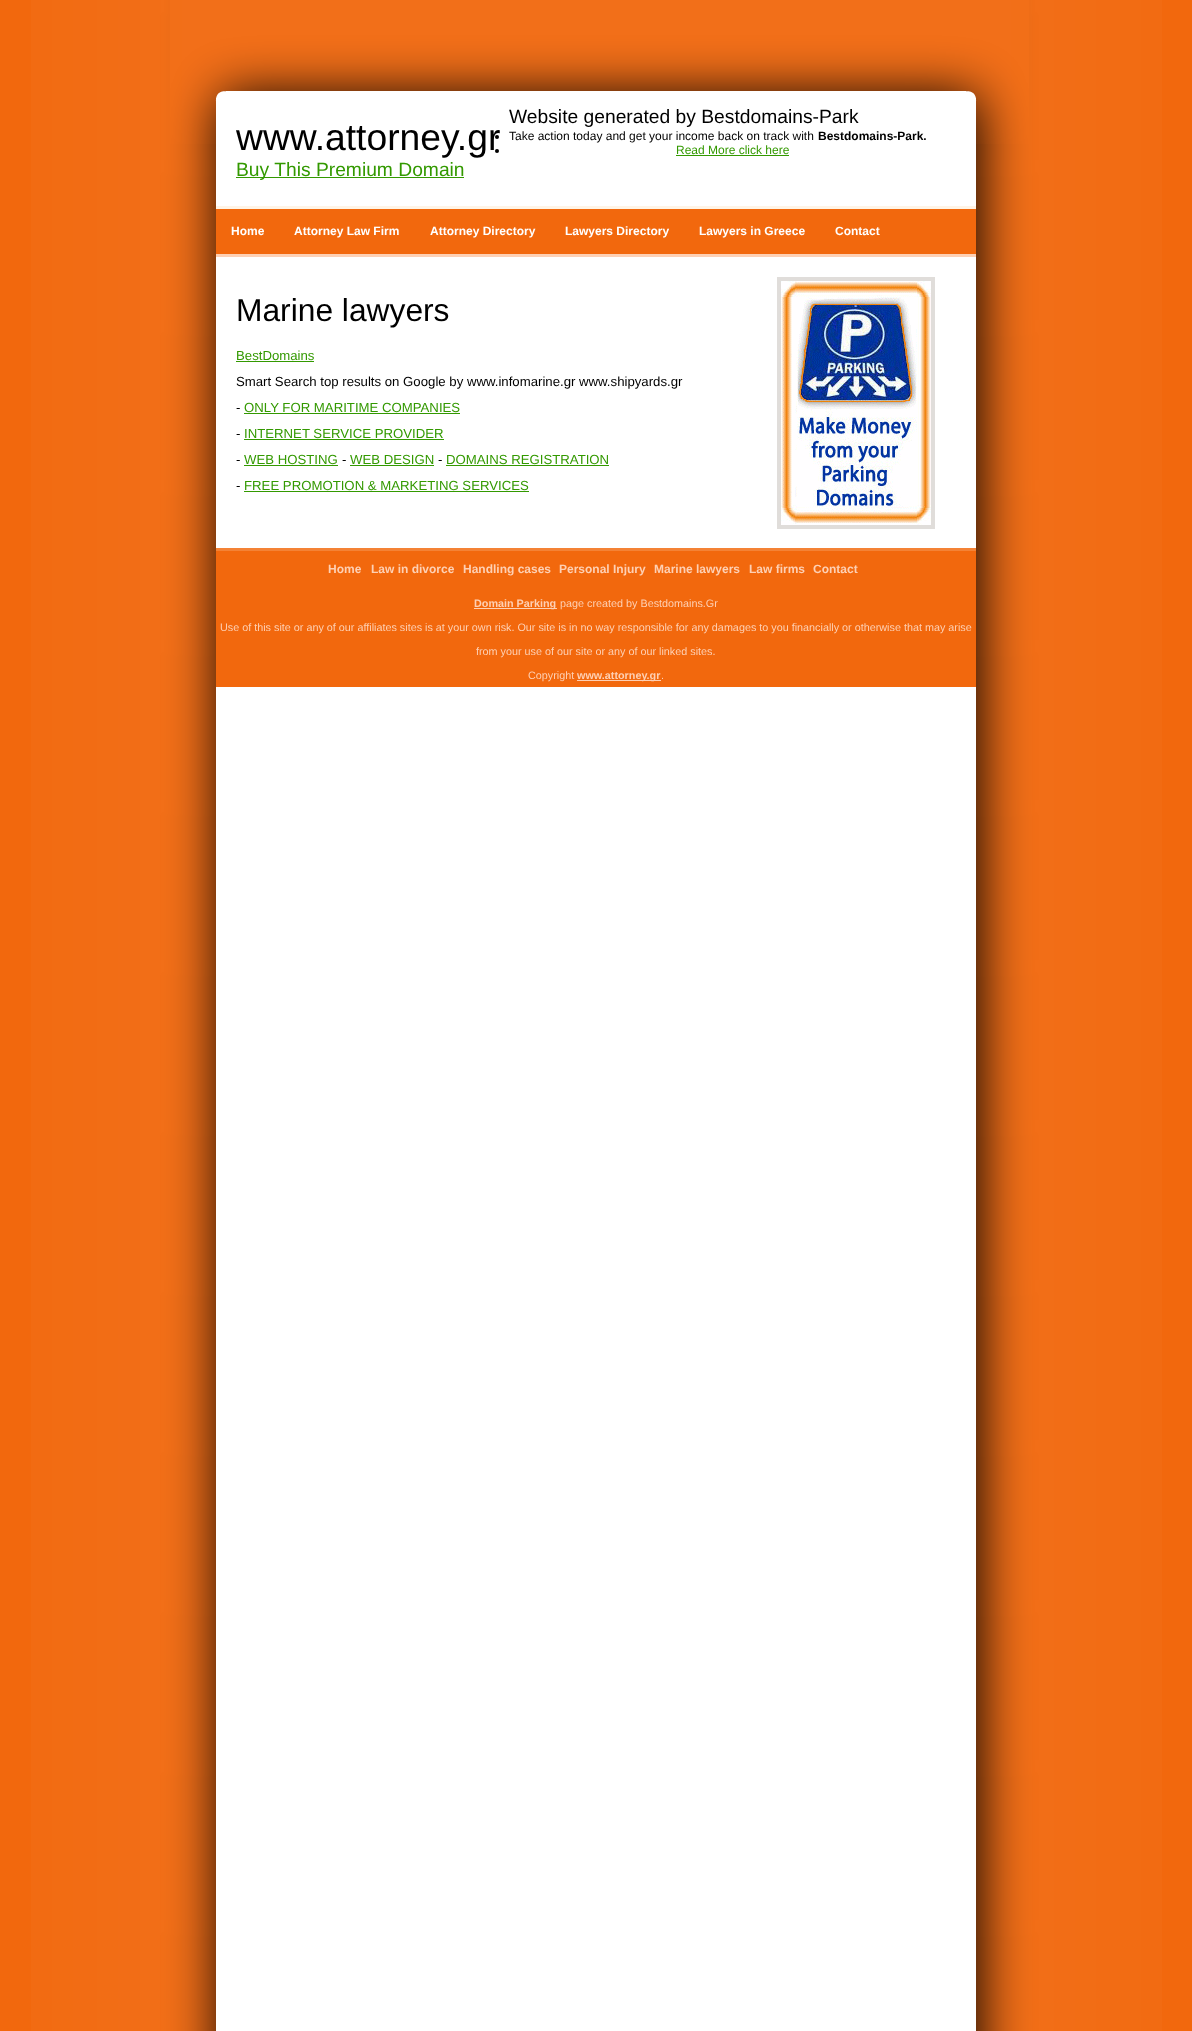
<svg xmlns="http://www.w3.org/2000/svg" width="1192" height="2031">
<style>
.a{font:37.25px Liberation Sans;fill:#000}
.b{font:19.25px Liberation Sans;fill:#390}
.c{font:19.25px Liberation Sans;fill:#000}
.d{font:12px Liberation Sans;fill:#000}
.e{font:bold 12px Liberation Sans;fill:#000}
.f{font:12px Liberation Sans;fill:#390}
.g{font:bold 12px Liberation Sans;fill:#fff}
.h{font:31.75px Liberation Sans;fill:#000}
.i{font:13.2px Liberation Sans;fill:#390}
.j{font:13.2px Liberation Sans;fill:#000}
.k{font:bold 12px Liberation Sans;fill:#fed0b4}
.l{font:bold 10.8px Liberation Sans;fill:#fed0b4}
.m{font:10.8px Liberation Sans;fill:#fed0b4}
</style>
<rect width="100%" height="100%" fill="#f2680d"/>
<image href="1.png" x="31" y="0" width="1131" height="2031"/>
<image href="2.png" x="170" y="0" width="859" height="144"/>
<path fill="#390" d="M236 177h228v1H236z"/>
<circle fill="#000" cx="497" cy="137" r="2"/>
<circle fill="#000" cx="497" cy="151" r="2"/>
<path fill="#390" d="M676 155h113v1H676z"/>
<path fill="#f2680d" d="M216 209h760v45H216z"/>
<path fill="#fff4e6" d="M216 206h760v3H216z"/>
<path fill="#fed0b4" d="M216 254h760v3H216z"/>
<path fill="#390" d="M236 361h78v1H236z"/>
<path fill="#390" d="M244 413h216v1H244z"/>
<path fill="#390" d="M244 439h200v1H244z"/>
<path fill="#390" d="M244 465h94v1H244z"/>
<path fill="#390" d="M350 465h84v1H350z"/>
<path fill="#390" d="M446 465h163v1H446z"/>
<path fill="#390" d="M244 491h285v1H244z"/>
<path fill="none" stroke="#e0ddda" stroke-width="4" d="M779 279h154v248H779z"/>
<image href="3.png" x="781" y="281" width="150" height="244"/>
<path fill="#f2680d" d="M216 551h760v136H216z"/>
<path fill="#f48235" d="M216 548h760v3H216z"/>
<path fill="#fed0b4" d="M474 608h83v1H474z"/>
<path fill="#fed0b4" d="M577 680h84v1H577z"/>
<text class="a" x="236" y="150">www.attorney.gr</text>
<text class="b" x="236" y="176">Buy This Premium Domain</text>
<text class="c" x="509" y="123">Website generated by Bestdomains-Park</text>
<text class="d" x="509" y="140">Take action today and get your income back on track with</text>
<text class="e" x="818" y="140">Bestdomains-Park.</text>
<text class="f" x="676" y="154">Read More click here</text>
<text class="g" x="231" y="235">Home</text>
<text class="g" x="294" y="235">Attorney Law Firm</text>
<text class="g" x="430" y="235">Attorney Directory</text>
<text class="g" x="565" y="235">Lawyers Directory</text>
<text class="g" x="699" y="235">Lawyers in Greece</text>
<text class="g" x="835" y="235">Contact</text>
<text class="h" x="236" y="321">Marine lawyers</text>
<text class="i" x="236" y="360">BestDomains</text>
<text class="j" x="236" y="386">Smart Search top results on Google by www.infomarine.gr www.shipyards.gr</text>
<text class="j" x="236" y="412">-</text>
<text class="i" x="244" y="412">ONLY FOR MARITIME COMPANIES</text>
<text class="j" x="236" y="438">-</text>
<text class="i" x="244" y="438">INTERNET SERVICE PROVIDER</text>
<text class="j" x="236" y="464">-</text>
<text class="i" x="244" y="464">WEB HOSTING</text>
<text class="j" x="342" y="464">-</text>
<text class="i" x="350" y="464">WEB DESIGN</text>
<text class="j" x="438" y="464">-</text>
<text class="i" x="446" y="464">DOMAINS REGISTRATION</text>
<text class="j" x="236" y="490">-</text>
<text class="i" x="244" y="490">FREE PROMOTION &amp; MARKETING SERVICES</text>
<text class="k" x="328" y="573">Home</text>
<text class="k" x="371" y="573">Law in divorce</text>
<text class="k" x="463" y="573">Handling cases</text>
<text class="k" x="559" y="573">Personal Injury</text>
<text class="k" x="654" y="573">Marine lawyers</text>
<text class="k" x="749" y="573">Law firms</text>
<text class="k" x="813" y="573">Contact</text>
<text class="l" x="474" y="607">Domain Parking</text>
<text class="m" x="560" y="607">page created by Bestdomains.Gr</text>
<text class="m" x="220" y="631">Use of this site or any of our affiliates sites is at your own risk. Our site is in no way responsible for any damages to you financially or otherwise that may arise</text>
<text class="m" x="476" y="655">from your use of our site or any of our linked sites.</text>
<text class="m" x="528" y="679">Copyright</text>
<text class="l" x="577" y="679">www.attorney.gr</text>
<text class="m" x="661" y="679">.</text>
</svg>
